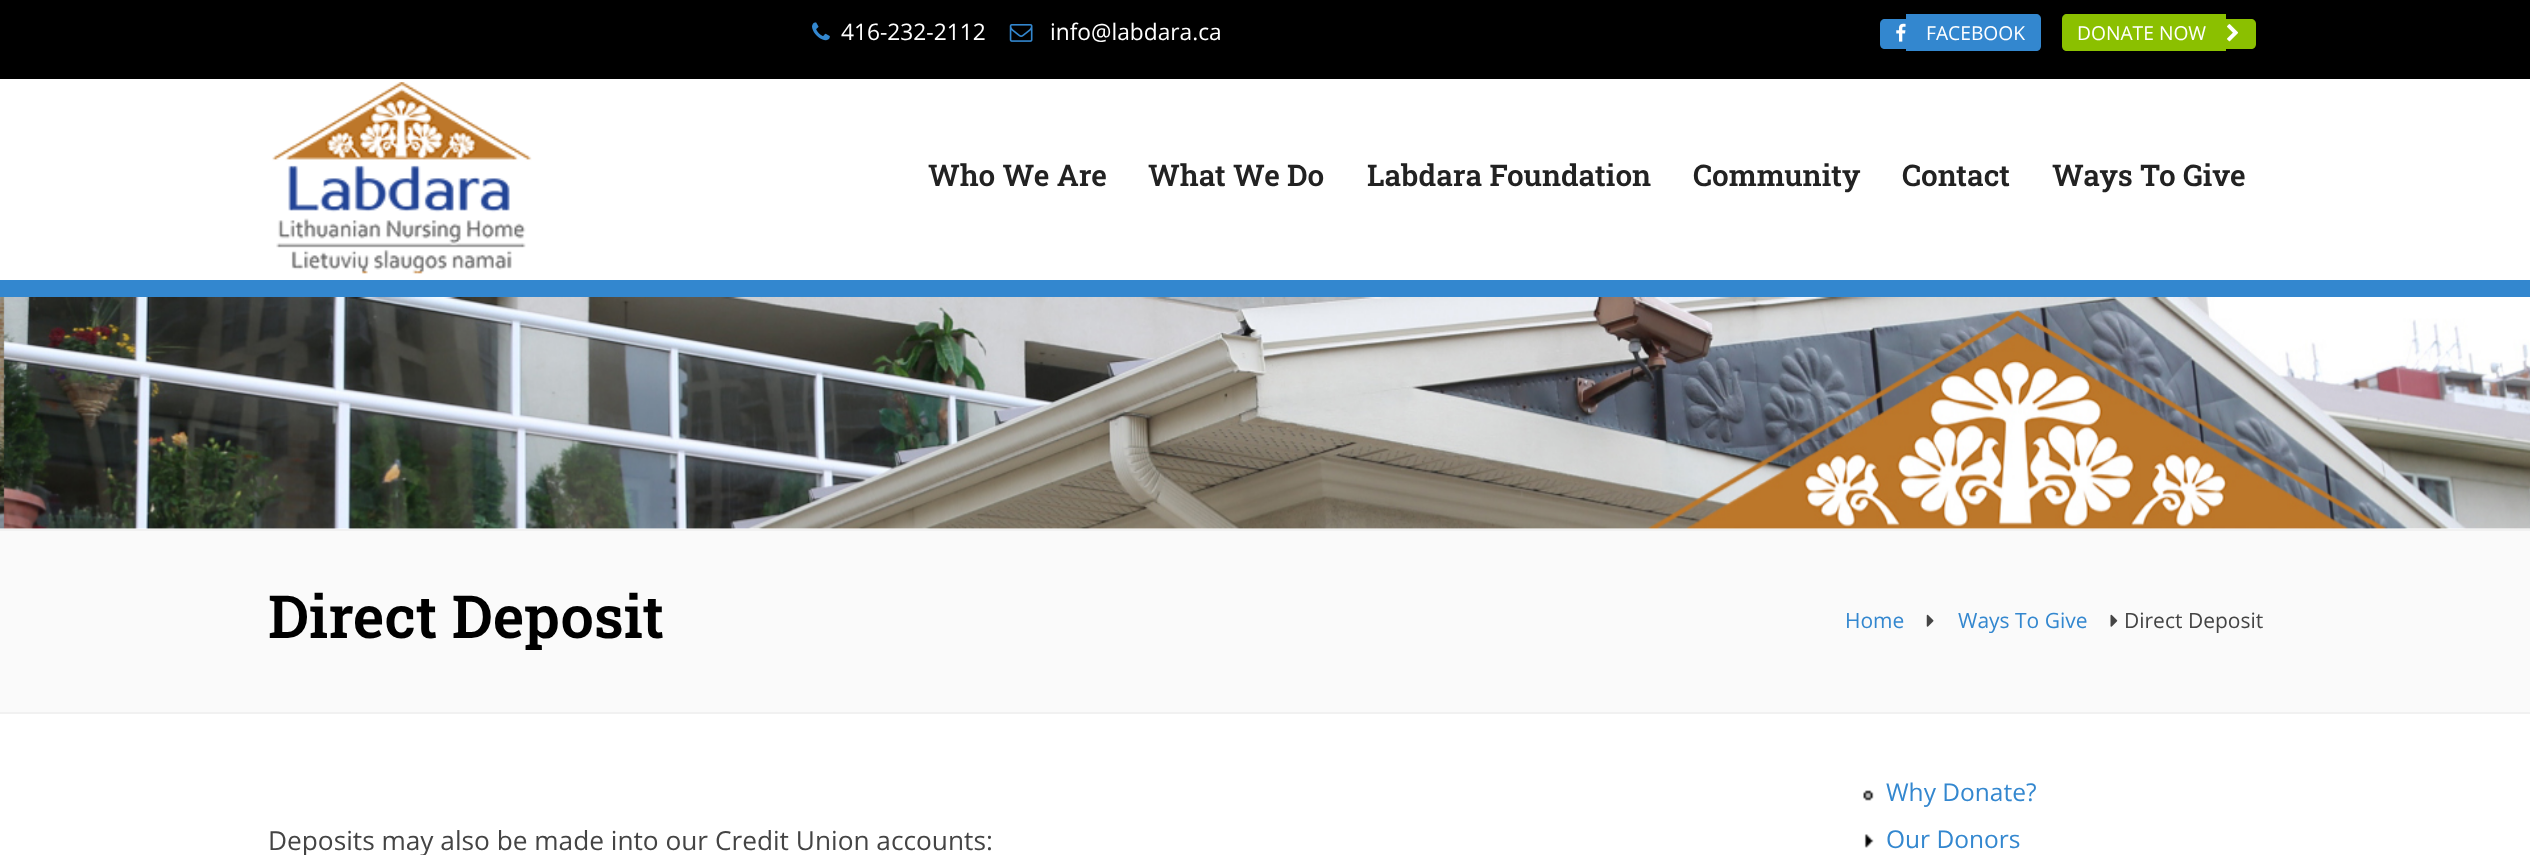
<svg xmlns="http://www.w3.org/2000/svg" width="2530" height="855">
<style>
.a{font:22.75px Open Sans;fill:#fff}
.b{font:19.25px Open Sans;fill:#fff}
.c{font:600 29.75px Roboto Slab;fill:#222}
.d{font:600 59.5px Roboto Slab;fill:#000}
.e{font:21px Open Sans;fill:#3387cf}
.f{font:21px Open Sans;fill:#444}
.g{font:26.25px Open Sans;fill:#444}
.h{font:24.5px Open Sans;fill:#3387cf}
</style>
<rect width="100%" height="100%" fill="#fff"/>
<path fill="#000" d="M0 0h2530v79H0z"/>
<image href="1.png" x="812" y="22" width="18" height="19"/>
<image href="2.png" x="1009" y="24" width="24" height="18"/>
<path fill="#3387cf" d="M1885 19h21v30h-21c-3 0-5-2-5-5v-20c0-3 2-5 5-5z"/>
<path fill="#3387cf" d="M1906 14h130c3 0 5 2 5 5v27c0 3-2 5-5 5h-130z"/>
<image href="3.png" x="1896" y="23" width="10" height="19"/>
<path fill="#8bc000" d="M2067 14h159v37h-159c-3 0-5-2-5-5v-27c0-3 2-5 5-5z"/>
<path fill="#8bc000" d="M2226 19h25c3 0 5 2 5 5v20c0 3-2 5-5 5h-25z"/>
<image href="4.png" x="2227" y="24" width="11" height="18"/>
<path fill="#3387cf" d="M0 280h2530v17H0z"/>
<image href="5.png" x="272" y="82" width="260" height="192"/>
<image href="6.png" x="0" y="297" width="2530" height="232"/>
<path fill="#fafafa" d="M0 531h2530v181H0z"/>
<path fill="#f1f1f1" d="M0 529h2530v2H0z"/>
<path fill="#f1f1f1" d="M0 712h2530v2H0z"/>
<image href="7.png" x="1926" y="614" width="8" height="13"/>
<image href="8.png" x="2110" y="614" width="8" height="13"/>
<image href="9.png" x="1863" y="790" width="11" height="11"/>
<image href="10.png" x="1864" y="834" width="10" height="14"/>
<text class="a" x="841" y="40">416-232-2112</text>
<text class="a" x="1050" y="40">info@labdara.ca</text>
<text class="b" x="1926" y="40">FACEBOOK</text>
<text class="b" x="2077" y="40">DONATE NOW</text>
<text class="c" x="928" y="186">Who We Are</text>
<text class="c" x="1148" y="186">What We Do</text>
<text class="c" x="1367" y="186">Labdara Foundation</text>
<text class="c" x="1693" y="186">Community</text>
<text class="c" x="1902" y="186">Contact</text>
<text class="c" x="2052" y="186">Ways To Give</text>
<text class="d" x="268" y="638">Direct Deposit</text>
<text class="e" x="1845" y="628">Home</text>
<text class="e" x="1958" y="628">Ways To Give</text>
<text class="f" x="2124" y="628">Direct Deposit</text>
<text class="g" x="268" y="850">Deposits may also be made into our Credit Union accounts:</text>
<text class="h" x="1886" y="801">Why Donate?</text>
<text class="h" x="1886" y="848">Our Donors</text>
</svg>
